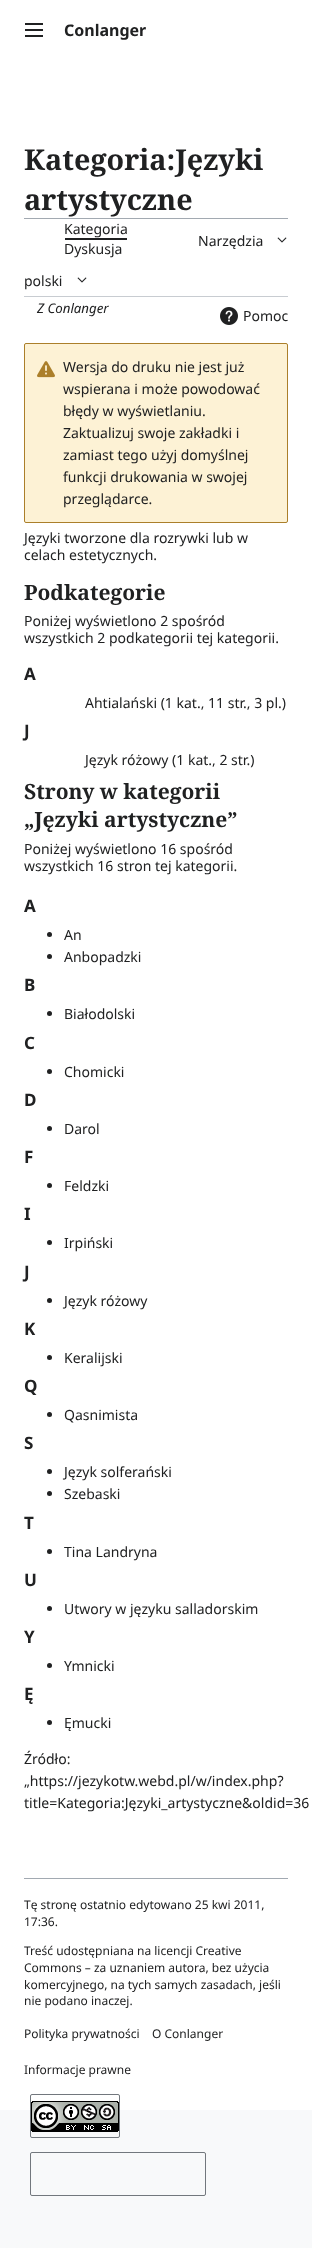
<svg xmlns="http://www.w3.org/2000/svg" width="312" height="2248">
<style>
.a{font:bold 16px Noto Sans;fill:#202122}
.b{font:bold 28.75px Noto Serif;fill:#202122}
.c{font:14px Noto Sans;fill:#202122}
.d{font:italic 13.25px Noto Sans;fill:#202122}
.e{font:bold 21px Noto Serif;fill:#202122}
.f{font:bold 17px Noto Sans;fill:#202122}
.g{font:12px Noto Sans;fill:#202122}
</style>
<rect width="100%" height="100%" fill="#f8f9fa"/>
<path fill="#fff" d="M0 0h312v2110H0z"/>
<image href="1.png" x="25" y="23" width="18" height="14"/>
<path fill="#a2a9b1" d="M24 218h264v1H24z"/>
<path fill="#c8ccd1" d="M24 296h264v1H24z"/>
<path fill="#202122" d="M65 238h62v2H65z"/>
<image href="2.png" x="77" y="277" width="10" height="6"/>
<image href="2.png" x="277" y="237" width="10" height="6"/>
<image href="3.png" x="220" y="307" width="18" height="18"/>
<rect fill="#fdf2d5" stroke="#ab7f2a" x="24.5" y="343.5" width="263" height="179" rx="1.5"/>
<image href="4.png" x="37" y="361" width="18" height="17"/>
<circle fill="#202122" cx="49.5" cy="934.5" r="2.5"/>
<circle fill="#202122" cx="49.5" cy="956.5" r="2.5"/>
<circle fill="#202122" cx="49.5" cy="1013.5" r="2.5"/>
<circle fill="#202122" cx="49.5" cy="1071.5" r="2.5"/>
<circle fill="#202122" cx="49.5" cy="1128.5" r="2.5"/>
<circle fill="#202122" cx="49.5" cy="1185.5" r="2.5"/>
<circle fill="#202122" cx="49.5" cy="1242.5" r="2.5"/>
<circle fill="#202122" cx="49.5" cy="1300.5" r="2.5"/>
<circle fill="#202122" cx="49.5" cy="1357.5" r="2.5"/>
<circle fill="#202122" cx="49.5" cy="1414.5" r="2.5"/>
<circle fill="#202122" cx="49.5" cy="1471.5" r="2.5"/>
<circle fill="#202122" cx="49.5" cy="1493.5" r="2.5"/>
<circle fill="#202122" cx="49.5" cy="1551.5" r="2.5"/>
<circle fill="#202122" cx="49.5" cy="1608.5" r="2.5"/>
<circle fill="#202122" cx="49.5" cy="1665.5" r="2.5"/>
<circle fill="#202122" cx="49.5" cy="1722.5" r="2.5"/>
<path fill="#a2a9b1" d="M24 1878h264v1H24z"/>
<rect fill="none" stroke="#72777d" x="30.5" y="2094.5" width="89" height="43" rx="1.5"/>
<image href="5.png" x="31" y="2101" width="88" height="31"/>
<rect fill="none" stroke="#72777d" x="30.5" y="2152.5" width="175" height="43" rx="1.5"/>
<text class="a" x="64" y="36">Conlanger</text>
<text class="b" x="24" y="170">Kategoria:Języki</text>
<text class="b" x="24" y="210">artystyczne</text>
<text class="c" x="64" y="234">Kategoria</text>
<text class="c" x="64" y="254">Dyskusja</text>
<text class="c" x="24" y="286">polski</text>
<text class="c" x="198" y="246">Narzędzia</text>
<text class="d" x="37" y="313">Z Conlanger</text>
<text class="c" x="243" y="321">Pomoc</text>
<text class="c" x="63" y="372">Wersja do druku nie jest już</text>
<text class="c" x="63" y="394">wspierana i może powodować</text>
<text class="c" x="63" y="416">błędy w wyświetlaniu.</text>
<text class="c" x="63" y="438">Zaktualizuj swoje zakładki i</text>
<text class="c" x="63" y="460">zamiast tego użyj domyślnej</text>
<text class="c" x="63" y="482">funkcji drukowania w swojej</text>
<text class="c" x="63" y="504">przeglądarce.</text>
<text class="c" x="24" y="543">Języki tworzone dla rozrywki lub w</text>
<text class="c" x="24" y="560">celach estetycznych.</text>
<text class="e" x="24" y="600">Podkategorie</text>
<text class="c" x="24" y="626">Poniżej wyświetlono 2 spośród</text>
<text class="c" x="24" y="643">wszystkich 2 podkategorii tej kategorii.</text>
<text class="f" x="24" y="680">A</text>
<text class="c" x="85" y="708">Ahtialański (1 kat., 11 str., 3 pl.)</text>
<text class="f" x="24" y="737">J</text>
<text class="c" x="85" y="765">Język różowy (1 kat., 2 str.)</text>
<text class="e" x="24" y="799">Strony w kategorii</text>
<text class="e" x="24" y="827">„Języki artystyczne”</text>
<text class="c" x="24" y="854">Poniżej wyświetlono 16 spośród</text>
<text class="c" x="24" y="871">wszystkich 16 stron tej kategorii.</text>
<text class="f" x="24" y="912">A</text>
<text class="c" x="64" y="940">An</text>
<text class="c" x="64" y="962">Anbopadzki</text>
<text class="f" x="24" y="991">B</text>
<text class="c" x="64" y="1019">Białodolski</text>
<text class="f" x="24" y="1049">C</text>
<text class="c" x="64" y="1077">Chomicki</text>
<text class="f" x="24" y="1106">D</text>
<text class="c" x="64" y="1134">Darol</text>
<text class="f" x="24" y="1163">F</text>
<text class="c" x="64" y="1191">Feldzki</text>
<text class="f" x="24" y="1220">I</text>
<text class="c" x="64" y="1248">Irpiński</text>
<text class="f" x="24" y="1278">J</text>
<text class="c" x="64" y="1306">Język różowy</text>
<text class="f" x="24" y="1335">K</text>
<text class="c" x="64" y="1363">Keralijski</text>
<text class="f" x="24" y="1392">Q</text>
<text class="c" x="64" y="1420">Qasnimista</text>
<text class="f" x="24" y="1449">S</text>
<text class="c" x="64" y="1477">Język solferański</text>
<text class="c" x="64" y="1499">Szebaski</text>
<text class="f" x="24" y="1529">T</text>
<text class="c" x="64" y="1557">Tina Landryna</text>
<text class="f" x="24" y="1586">U</text>
<text class="c" x="64" y="1614">Utwory w języku salladorskim</text>
<text class="f" x="24" y="1643">Y</text>
<text class="c" x="64" y="1671">Ymnicki</text>
<text class="f" x="24" y="1700">Ę</text>
<text class="c" x="64" y="1728">Ęmucki</text>
<text class="c" x="24" y="1764">Źródło:</text>
<text class="c" x="24" y="1786">„https://jezykotw.webd.pl/w/index.php?</text>
<text class="c" x="24" y="1808">title=Kategoria:Języki_artystyczne&amp;oldid=36</text>
<text class="g" x="24" y="1909">Tę stronę ostatnio edytowano 25 kwi 2011,</text>
<text class="g" x="24" y="1926">17:36.</text>
<text class="g" x="24" y="1955">Treść udostępniana na licencji Creative</text>
<text class="g" x="24" y="1972">Commons – za uznaniem autora, bez użycia</text>
<text class="g" x="24" y="1989">komercyjnego, na tych samych zasadach, jeśli</text>
<text class="g" x="24" y="2005">nie podano inaczej.</text>
<text class="g" x="24" y="2038">Polityka prywatności</text>
<text class="g" x="152" y="2038">O Conlanger</text>
<text class="g" x="24" y="2074">Informacje prawne</text>
</svg>
